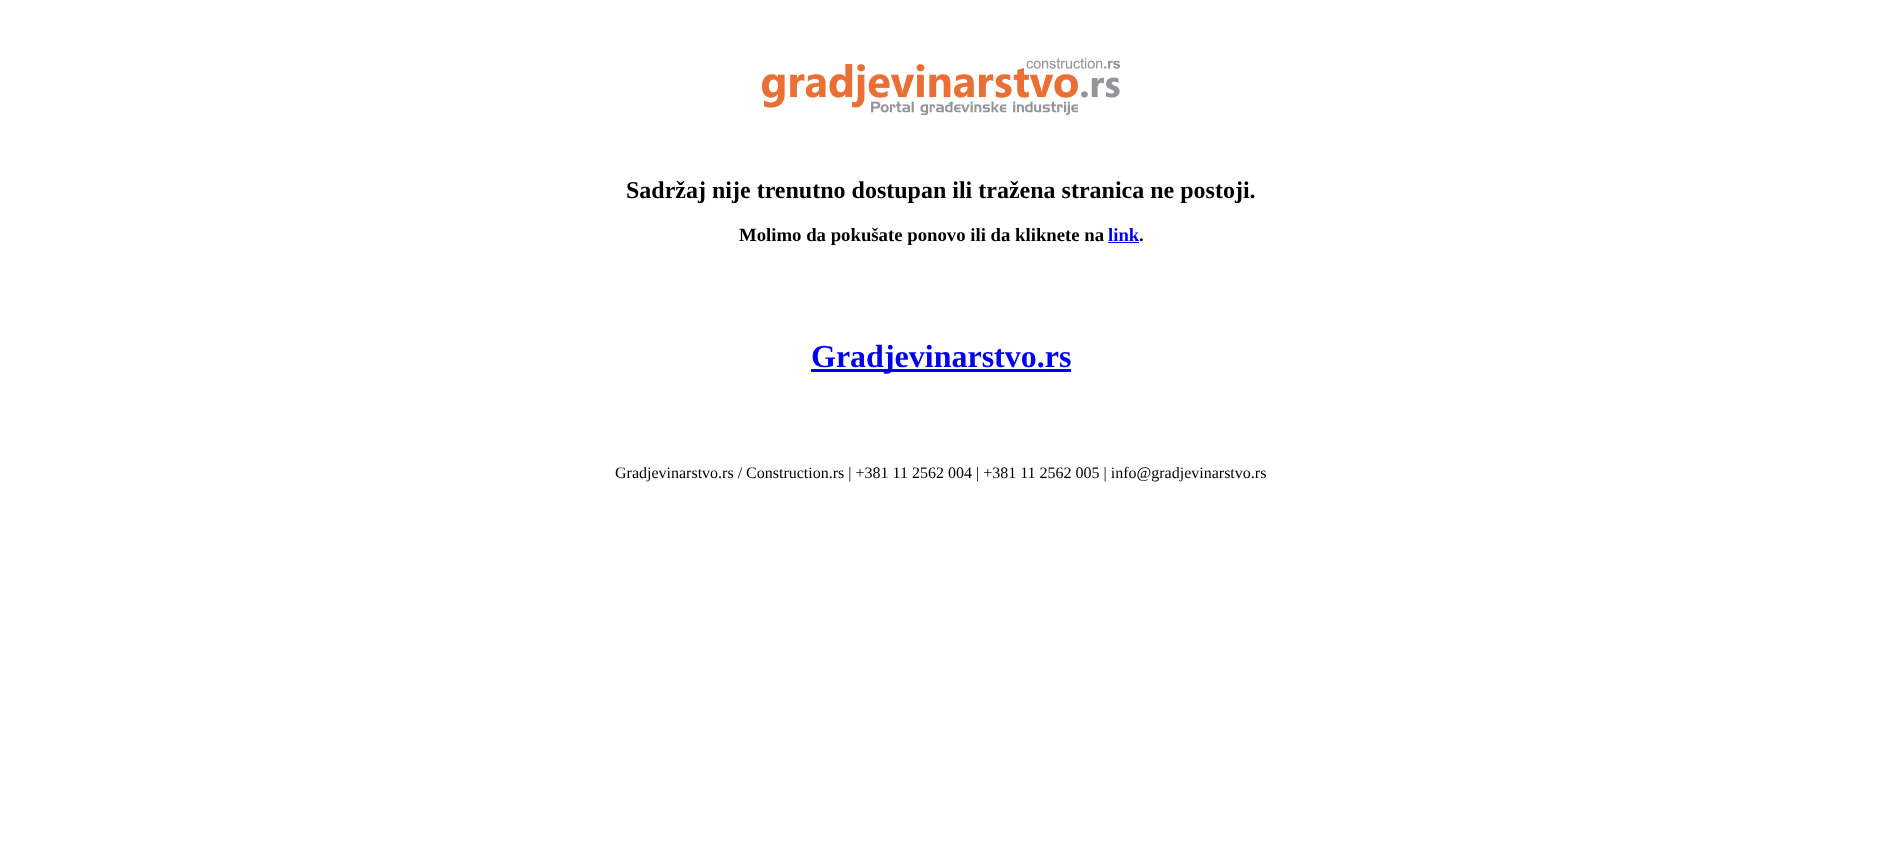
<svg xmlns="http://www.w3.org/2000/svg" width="1882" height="860">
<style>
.a{font:bold 24px Liberation Serif;fill:#000}
.b{font:bold 18.75px Liberation Serif;fill:#000}
.c{font:bold 18.75px Liberation Serif;fill:#00e}
.d{font:bold 32px Liberation Serif;fill:#00e}
.e{font:16px Liberation Serif;fill:#000}
</style>
<rect width="100%" height="100%" fill="#fff"/>
<image href="1.png" x="762" y="58" width="358" height="57"/>
<path fill="#00e" d="M1108 242h31v1H1108z"/>
<path fill="#00e" d="M811 369h260v3H811z"/>
<text class="a" x="626" y="198">Sadržaj nije trenutno dostupan ili tražena stranica ne postoji.</text>
<text class="b" x="739" y="241">Molimo da pokušate ponovo ili da kliknete na</text>
<text class="c" x="1108" y="241">link</text>
<text class="b" x="1139" y="241">.</text>
<text class="d" x="811" y="367">Gradjevinarstvo.rs</text>
<text class="e" x="615" y="478">Gradjevinarstvo.rs / Construction.rs | +381 11 2562 004 | +381 11 2562 005 | info@gradjevinarstvo.rs</text>
</svg>
